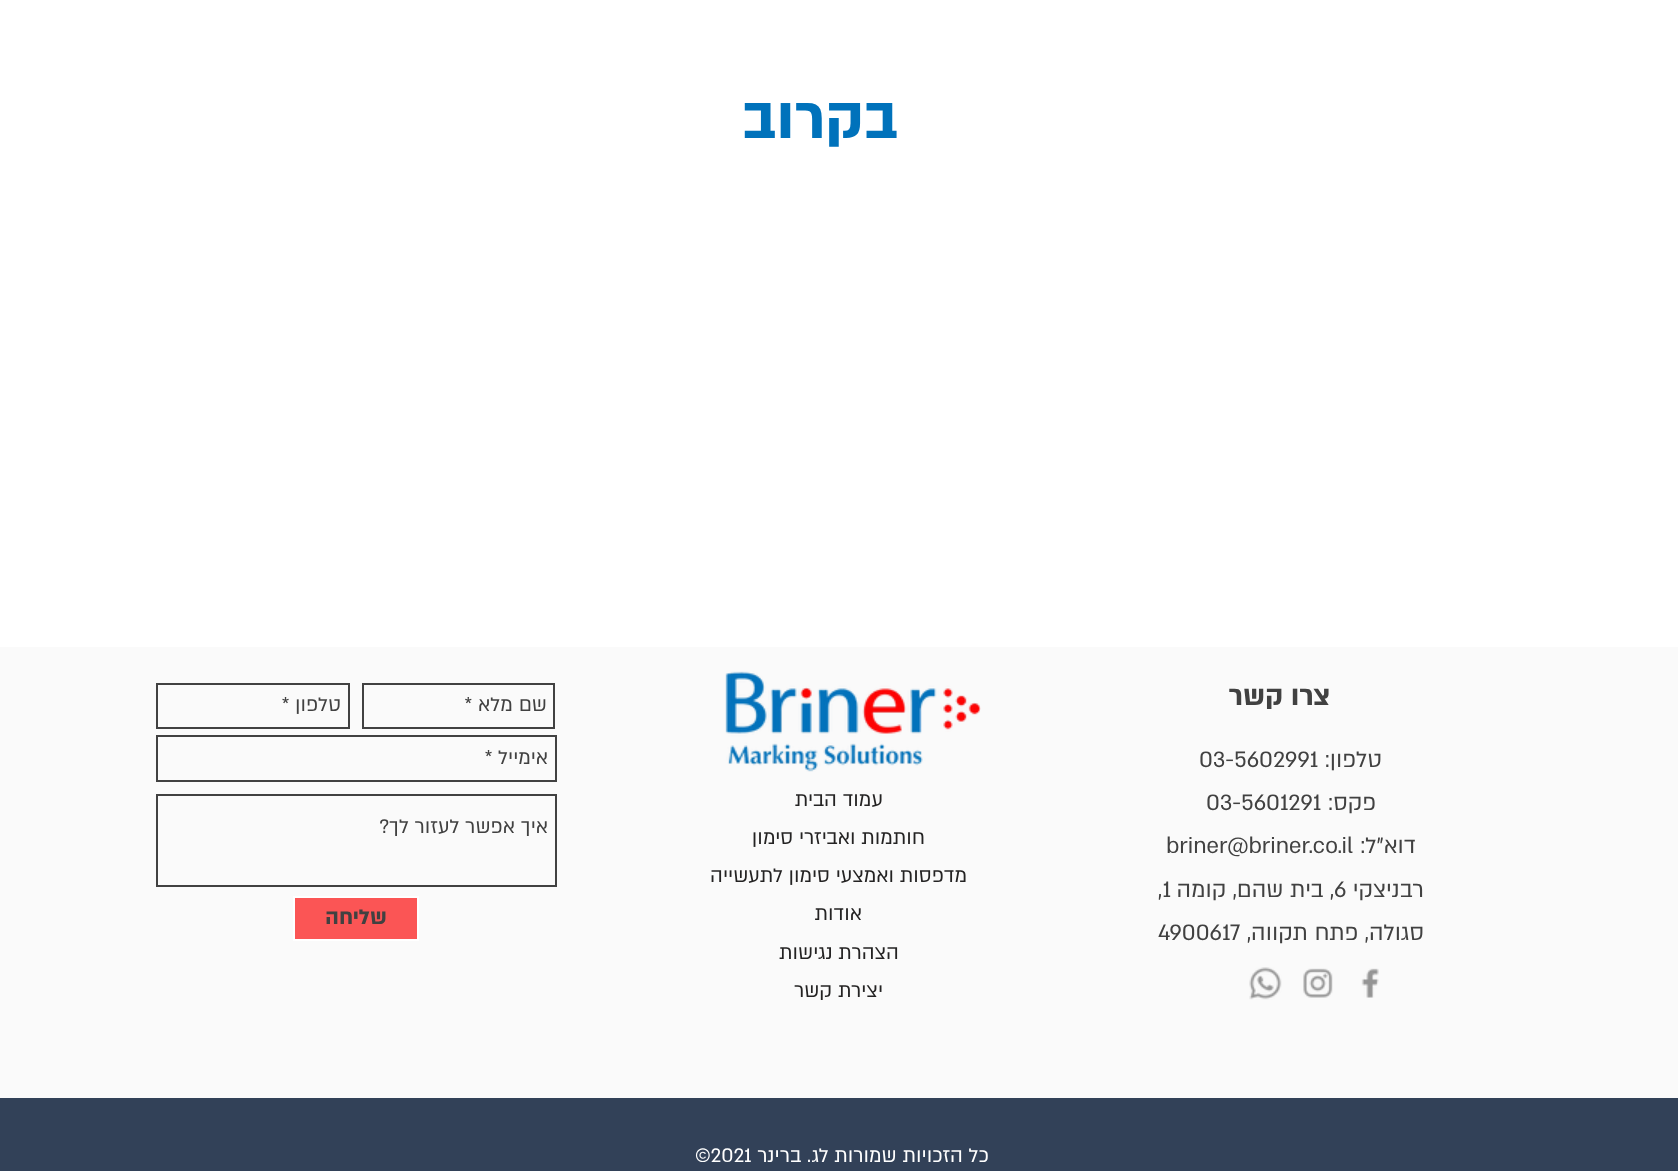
<svg xmlns="http://www.w3.org/2000/svg" width="1678" height="1171">
<style>
.a{font:bold 67.5px 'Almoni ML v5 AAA';direction:rtl;fill:#0072bb}
.b{font:bold 31.5px 'Almoni ML v5 AAA';direction:rtl;fill:#414141}
.c{font:25.5px 'Almoni ML v5 AAA';direction:rtl;fill:#414141}
.d{font:25.5px 'Almoni ML v5 AAA';fill:#414141}
.e{font:22.5px 'Almoni ML v5 AAA';direction:rtl;fill:#242323}
.f{font:22.5px 'Almoni ML v5 AAA';direction:rtl;fill:#414141}
.g{font:bold 24px 'Almoni ML v5 AAA';direction:rtl;fill:#414141}
.h{font:22.5px 'Almoni ML v5 AAA';direction:rtl;fill:#fff}
.i{font:22.5px 'Almoni ML v5 AAA';fill:#fff}
</style>
<rect width="100%" height="100%" fill="#fff"/>
<path fill="#fafafa" d="M0 647h1678v451H0z"/>
<image href="1.png" x="1361" y="968" width="18" height="30"/>
<image href="2.png" x="1303" y="968" width="30" height="30"/>
<image href="3.png" x="1249" y="967" width="33" height="33"/>
<image href="4.png" x="725" y="671" width="256" height="101"/>
<path fill="none" stroke="#414141" stroke-width="2" d="M363 684h191v44H363z"/>
<path fill="none" stroke="#414141" stroke-width="2" d="M157 684h192v44H157z"/>
<path fill="none" stroke="#414141" stroke-width="2" d="M157 736h399v45H157z"/>
<path fill="none" stroke="#414141" stroke-width="2" d="M157 795h399v91H157z"/>
<path fill="#fb5555" stroke="#fff" stroke-width="2" d="M294 897h124v43H294z"/>
<path fill="#324158" d="M0 1098h1678v73H0z"/>
<text class="a" x="898" y="138">בקרוב</text>
<text class="b" x="1330" y="705">צרו קשר</text>
<text class="c" x="1382" y="767">טלפון:</text>
<text class="d" x="1199" y="767">03-5602991</text>
<text class="c" x="1376" y="810">פקס:</text>
<text class="d" x="1206" y="810">03-5601291</text>
<text class="c" x="1416" y="853">דוא"ל:</text>
<text class="d" x="1166" y="853">briner@briner.co.il</text>
<text class="c" x="1424" y="897">רבניצקי</text>
<text class="d" x="1334" y="897">6</text>
<text class="c" x="1334" y="897">, בית שהם, קומה</text>
<text class="d" x="1158" y="897">,1</text>
<text class="c" x="1424" y="940">סגולה, פתח תקווה,</text>
<text class="d" x="1158" y="940">4900617</text>
<text class="e" x="883" y="806">עמוד הבית</text>
<text class="e" x="925" y="844">חותמות ואביזרי סימון</text>
<text class="e" x="967" y="882">מדפסות ואמצעי סימון לתעשייה</text>
<text class="e" x="862" y="920">אודות</text>
<text class="e" x="899" y="959">הצהרת נגישות</text>
<text class="e" x="883" y="997">יצירת קשר</text>
<text class="f" x="547" y="711">שם מלא *</text>
<text class="f" x="341" y="711">טלפון *</text>
<text class="f" x="548" y="764">אימייל *</text>
<text class="f" x="548" y="833">איך אפשר לעזור לך?</text>
<text class="g" x="387" y="924">שליחה</text>
<text class="h" x="989" y="1162">כל הזכויות שמורות לג. ברינר</text>
<text class="i" x="695" y="1162">©2021</text>
</svg>
